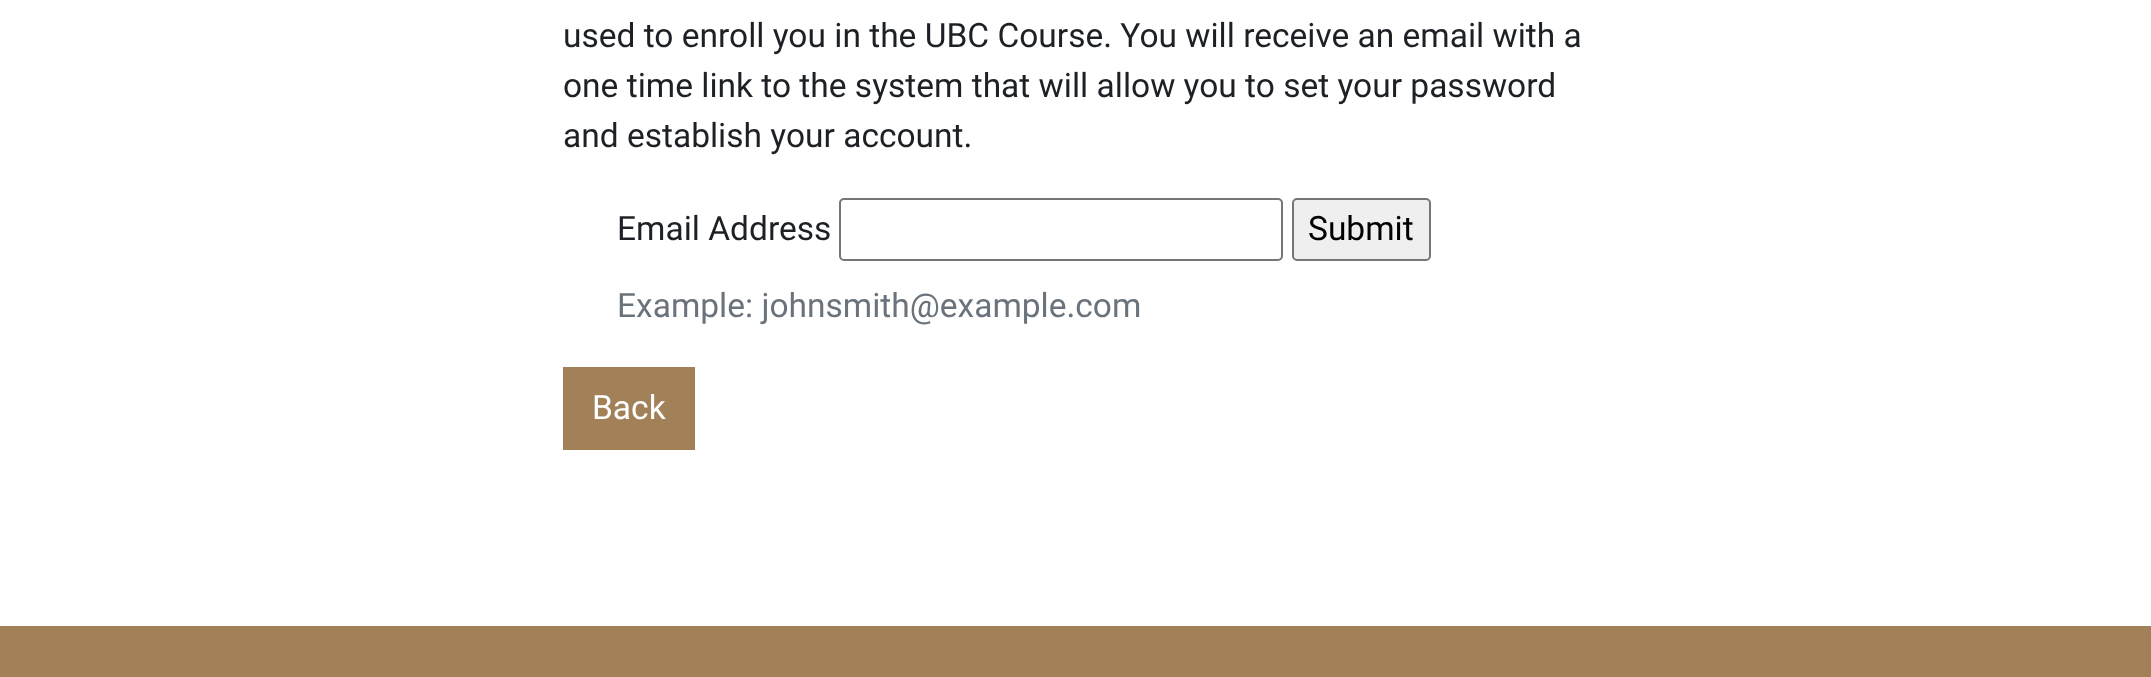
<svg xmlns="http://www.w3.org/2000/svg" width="2151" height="677">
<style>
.a{font:33.5px Roboto;fill:#1d2125}
.b{font:33.5px Roboto;fill:#000}
.c{font:33.5px Roboto;fill:#6a737b}
.d{font:33.5px Roboto;fill:#fff}
</style>
<rect width="100%" height="100%" fill="#fff"/>
<rect fill="none" stroke="#767676" stroke-width="2" x="840" y="199" width="442" height="61" rx="4"/>
<rect fill="#efefef" stroke="#767676" stroke-width="2" x="1293" y="199" width="137" height="61" rx="4"/>
<path fill="#a28058" d="M563 367h132v83H563z"/>
<path fill="#a28058" d="M0 626h2151v51H0z"/>
<text class="a" x="563" y="47">used to enroll you in the UBC Course. You will receive an email with a</text>
<text class="a" x="563" y="97">one time link to the system that will allow you to set your password</text>
<text class="a" x="563" y="147">and establish your account.</text>
<text class="a" x="617" y="240">Email Address</text>
<text class="b" x="1308" y="240">Submit</text>
<text class="c" x="617" y="317">Example: johnsmith@example.com</text>
<text class="d" x="592" y="419">Back</text>
</svg>
